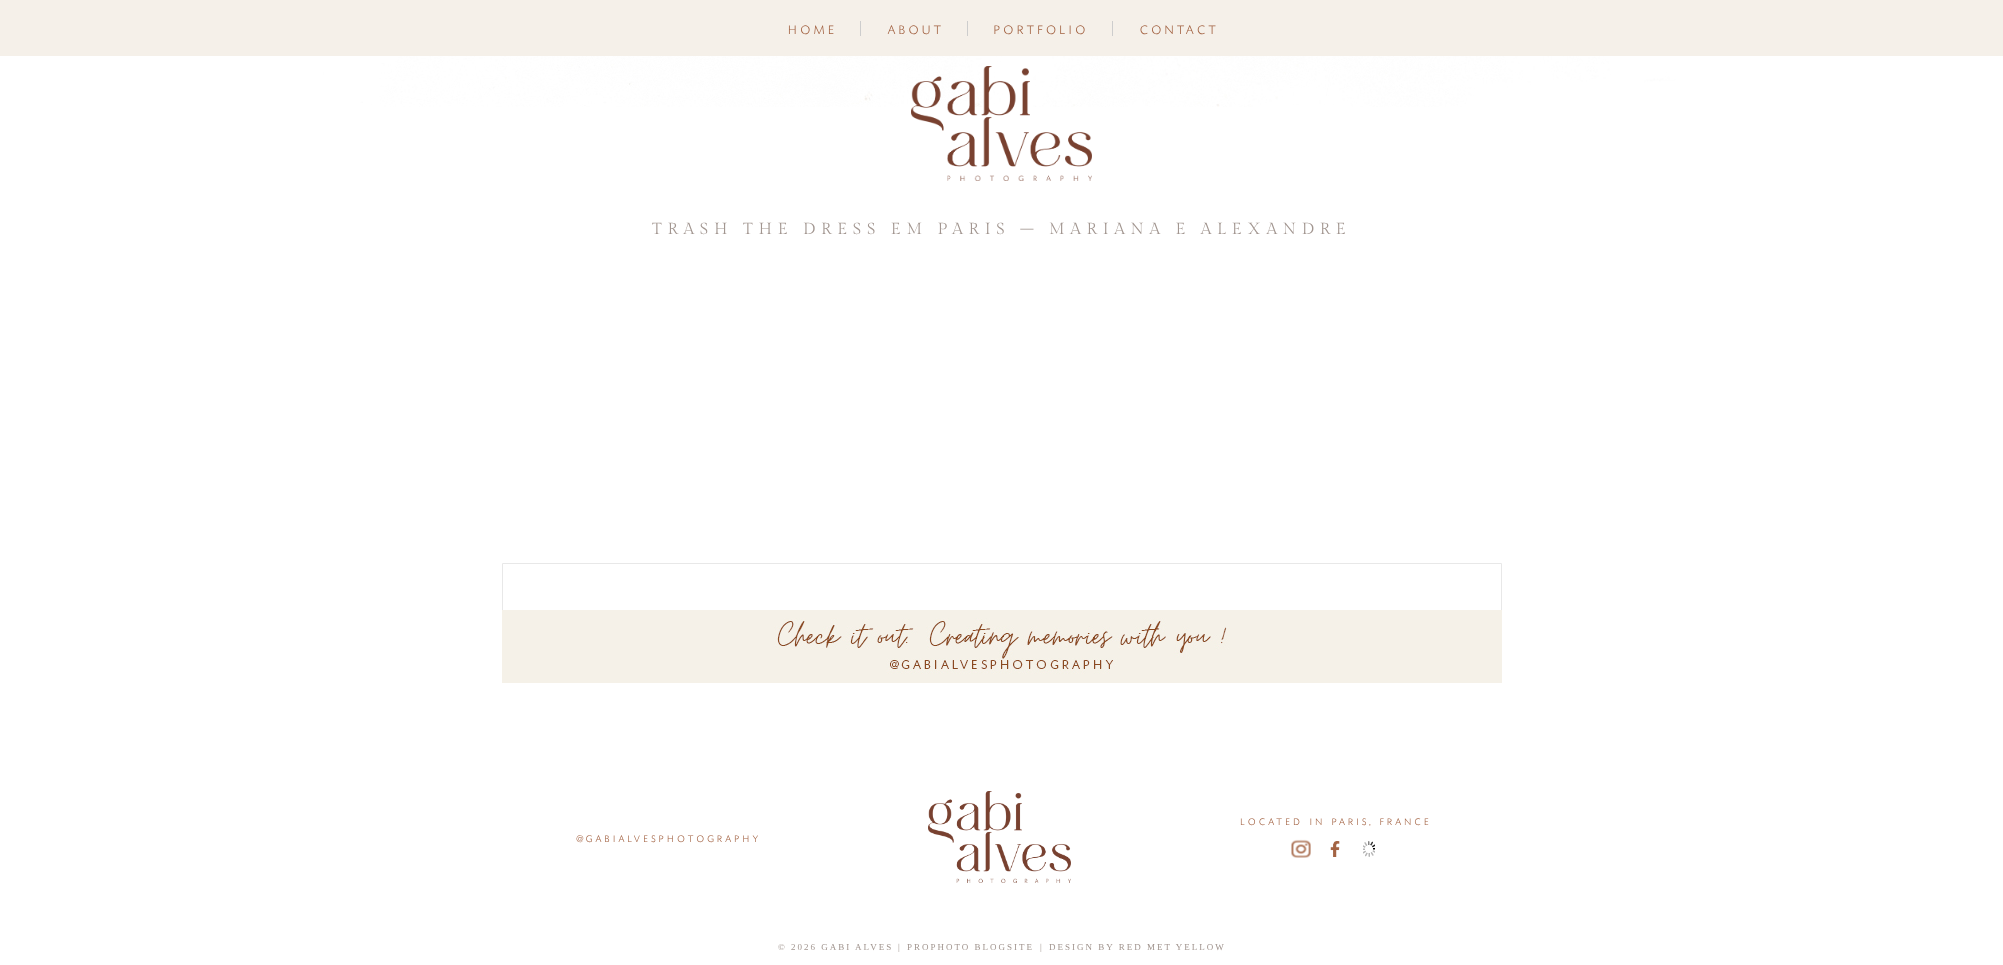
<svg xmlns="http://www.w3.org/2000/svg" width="2003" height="965">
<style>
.a{font:26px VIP;fill:#a36343}
.b{font:16px Gilda Display;letter-spacing:5.75px;fill:#a29690}
.c{font:20px VIP;letter-spacing:0.6px;fill:#a36343}
.d{font:9px Liberation Serif;letter-spacing:2px;fill:#a29690}
</style>
<rect width="100%" height="100%" fill="#fff"/>
<image href="1.png" x="323" y="56" width="1355" height="51"/>
<path fill="#f5f0e9" d="M0 0h2003v56H0z"/>
<path fill="#cdcdcd" d="M860 21h1v15H860z"/>
<path fill="#cdcdcd" d="M967 21h1v15H967z"/>
<path fill="#cdcdcd" d="M1112 21h1v15H1112z"/>
<image href="2.png" x="911" y="66" width="181" height="115"/>
<path fill="none" stroke="#e8e8e8" d="M502.5 563.5h999v61H502.5z"/>
<image href="3.png" x="502" y="610" width="1000" height="73"/>
<image href="4.png" x="928" y="791" width="143" height="92"/>
<image href="5.png" x="1291" y="839" width="20" height="19"/>
<image href="6.png" x="1330" y="841" width="10" height="16"/>
<image href="7.png" x="1363" y="841" width="12" height="16"/>
<text class="a" x="786" y="34">home</text>
<text class="a" x="886" y="34">about</text>
<text class="a" x="992" y="34">portfolio</text>
<text class="a" x="1138" y="34">contact</text>
<text class="b" x="652" y="234">TRASH THE DRESS EM PARIS – MARIANA E ALEXANDRE</text>
<text class="c" x="1239" y="825">located in paris, france</text>
<text class="c" x="576" y="842">@gabialvesphotography</text>
<text class="d" x="778" y="950">© 2026 GABI ALVES</text>
<text class="d" x="898" y="950">|</text>
<text class="d" x="907" y="950">PROPHOTO BLOGSITE</text>
<text class="d" x="1040" y="950">|</text>
<text class="d" x="1049" y="950">DESIGN BY RED MET YELLOW</text>
</svg>
